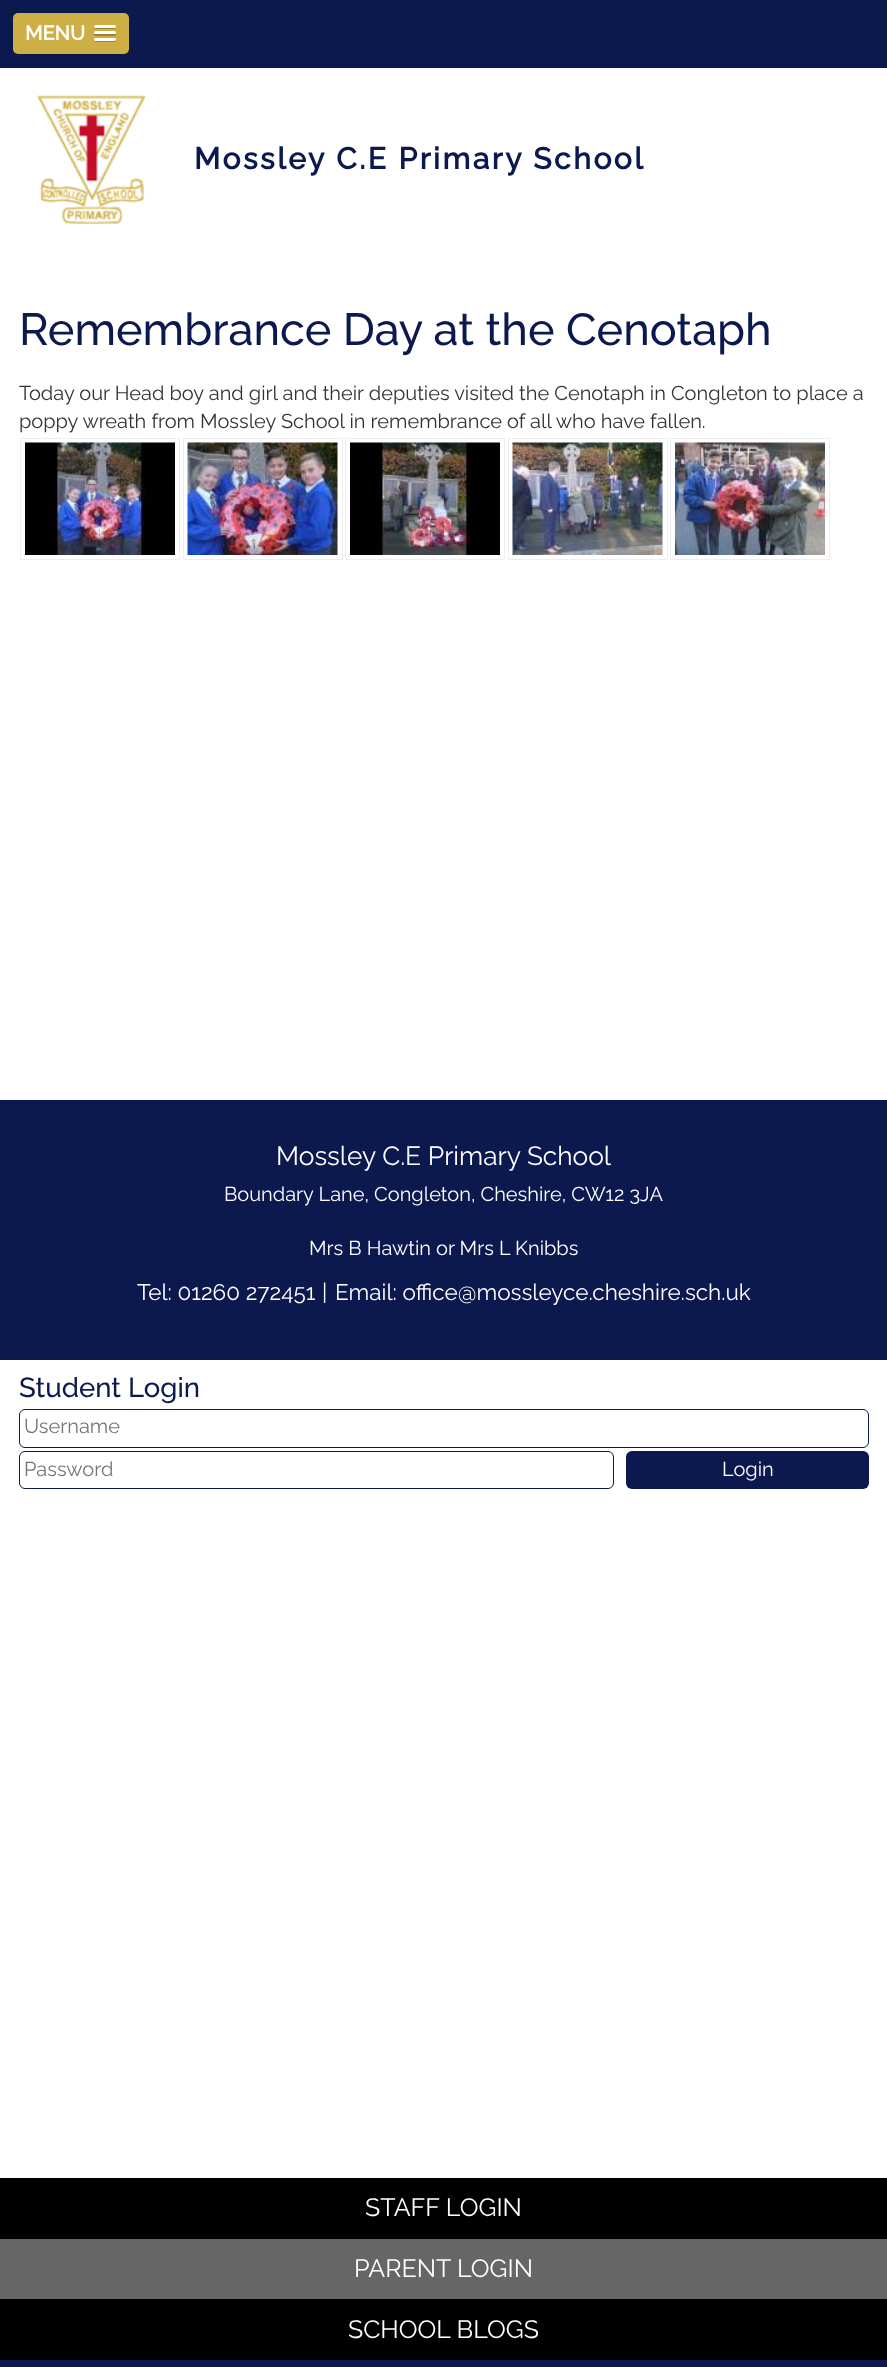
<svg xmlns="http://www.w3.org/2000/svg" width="887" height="2367">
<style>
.a{font:bold 20px Raleway;fill:#fff}
.b{font:bold 30px Raleway;letter-spacing:2.5px;fill:#0b194f}
.c{font:500 45px Raleway;fill:#0b194f}
.d{font:20px Raleway;fill:#333}
.e{font:26.25px Raleway;fill:#fff}
.f{font:20px Raleway;fill:#fff}
.g{font:22.5px Raleway;fill:#fff}
.h{font:500 27.5px Raleway;fill:#0b194f}
.i{font:20px Raleway;fill:#757575}
.j{font:25px Raleway;fill:#fff}
</style>
<rect width="100%" height="100%" fill="#fff"/>
<path fill="#0b194f" d="M0 0h887v68H0z"/>
<rect fill="#cdaf46" x="13" y="13" width="116" height="41" rx="5"/>
<path fill="#9a8335" d="M94 27c-.5 2.5 4 2 4.5 2h13c.5 0 5 .5 4.5-2c-1 1-21 1-22 0z"/>
<rect fill="#fff" x="94" y="25" width="22" height="3" rx="1.5"/>
<path fill="#9a8335" d="M94.5 33.5l-.5 1.5c.5 1.5 3.5 1 4.5 1h13c1 0 4 .5 4.5-1l-.5-1.5z"/>
<rect fill="#fff" x="94" y="31" width="22" height="3" rx="1.5"/>
<path fill="#9a8335" d="M94 39.5c-1.5 3 4 2.5 4.5 2.5h13c.5 0 6 .5 4.5-2.5c-1 .5-21 .5-22 0z"/>
<rect fill="#fff" x="94" y="38" width="22" height="3" rx="1.5"/>
<image href="1.png" x="37" y="95" width="109" height="130"/>
<path fill="none" stroke="#eee" d="M20.5 438.5h159v121H20.5z"/>
<image href="2.png" x="25" y="442" width="150" height="113"/>
<path fill="none" stroke="#eee" d="M183.5 438.5h159v121H183.5z"/>
<image href="3.png" x="187" y="442" width="151" height="113"/>
<path fill="none" stroke="#eee" d="M345.5 438.5h159v121H345.5z"/>
<image href="4.png" x="350" y="442" width="150" height="113"/>
<path fill="none" stroke="#eee" d="M508.5 438.5h159v121H508.5z"/>
<image href="5.png" x="512" y="442" width="151" height="113"/>
<path fill="none" stroke="#eee" d="M670.5 438.5h159v121H670.5z"/>
<image href="6.png" x="675" y="442" width="150" height="113"/>
<path fill="#0b194f" d="M0 1100h887v260H0z"/>
<rect fill="none" stroke="#0b194f" x="19.5" y="1409.5" width="849" height="38" rx="5.5"/>
<rect fill="none" stroke="#0b194f" x="19.5" y="1451.5" width="594" height="37" rx="5.5"/>
<rect fill="#0b194f" x="626" y="1451" width="243" height="38" rx="6"/>
<path fill="#000" d="M0 2178h887v61H0z"/>
<path fill="#666" d="M0 2239h887v60H0z"/>
<path fill="#000" d="M0 2299h887v61H0z"/>
<path fill="#0b194f" d="M0 2360h887v7H0z"/>
<text class="a" x="25" y="40">MENU</text>
<text class="b" x="194" y="169">Mossley C.E Primary School</text>
<text class="c" x="19" y="345">Remembrance Day at the Cenotaph</text>
<text class="d" x="19" y="400">Today our Head boy and girl and their deputies visited the Cenotaph in Congleton to place a</text>
<text class="d" x="19" y="428">poppy wreath from Mossley School in remembrance of all who have fallen.</text>
<text class="e" x="276" y="1165">Mossley C.E Primary School</text>
<text class="f" x="224" y="1201">Boundary Lane, Congleton, Cheshire, CW12 3JA</text>
<text class="f" x="309" y="1255">Mrs B Hawtin or Mrs L Knibbs</text>
<text class="g" x="137" y="1300">Tel: 01260 272451</text>
<text class="g" x="322" y="1300">|</text>
<text class="g" x="335" y="1300">Email: office@mossleyce.cheshire.sch.uk</text>
<text class="h" x="19" y="1397">Student Login</text>
<text class="i" x="24" y="1433">Username</text>
<text class="i" x="24" y="1476">Password</text>
<text class="f" x="722" y="1476">Login</text>
<text class="j" x="365" y="2216">STAFF LOGIN</text>
<text class="j" x="354" y="2277">PARENT LOGIN</text>
<text class="j" x="348" y="2338">SCHOOL BLOGS</text>
</svg>
